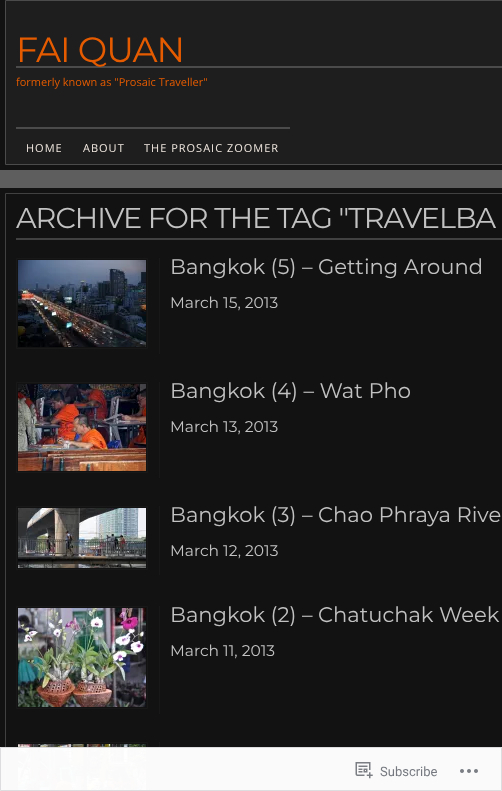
<svg xmlns="http://www.w3.org/2000/svg" width="502" height="791">
<style>
.a{font:100 35px Montserrat;letter-spacing:-1px;fill:#e55b00}
.b{font:11px Open Sans;fill:#e55b00}
.c{font:11px Open Sans;letter-spacing:1px;fill:#f2e9e1}
.d{font:100 28.75px Montserrat;letter-spacing:-1px;fill:#c2c2c2}
.e{font:100 21.1px Montserrat;fill:#c2c2c2}
.f{font:100 15.5px Montserrat;fill:#c2c2c2}
.g{font:13px Roboto;fill:#767a80}
</style>
<rect width="100%" height="100%" fill="#5e5e5e"/>
<path fill="#121212" d="M0 0h502v170H0z"/>
<path fill="#1e1e1e" stroke="#4b4b4b" d="M5.5 0.5h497v164H5.5z"/>
<path fill="#4b4b4b" d="M16 66h486v2H16z"/>
<path fill="#4b4b4b" d="M16 127h274v2H16z"/>
<path fill="#121212" d="M0 188h502v603H0z"/>
<path fill="none" stroke="#414141" d="M5.5 193.5h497v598H5.5z"/>
<path fill="#414141" d="M16 238h486v2H16z"/>
<path fill="#181818" d="M159 258h1v96H159z"/>
<path fill="none" stroke="#181818" d="M16.5 258.5h131v90H16.5z"/>
<image href="1.png" x="18" y="260" width="128" height="87"/>
<path fill="#181818" d="M159 382h1v96H159z"/>
<path fill="none" stroke="#181818" d="M16.5 382.5h131v90H16.5z"/>
<image href="2.png" x="18" y="384" width="128" height="87"/>
<path fill="#181818" d="M159 506h1v69H159z"/>
<path fill="none" stroke="#181818" d="M16.5 506.5h131v63H16.5z"/>
<image href="3.png" x="18" y="508" width="128" height="60"/>
<path fill="#181818" d="M159 606h1v108H159z"/>
<path fill="none" stroke="#181818" d="M16.5 606.5h131v102H16.5z"/>
<image href="4.png" x="18" y="608" width="128" height="99"/>
<path fill="#181818" d="M159 742h1v49H159z"/>
<path fill="none" stroke="#181818" d="M16.5 742.5h131v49H16.5z"/>
<image href="5.png" x="18" y="744" width="128" height="47"/>
<path fill="#fffffffa" d="M0 747h502v44H0z"/>
<path fill="none" stroke="#dcdcdefa" d="M0.5 747.5h501v43H0.5z"/>
<image href="6.png" x="355" y="762" width="18" height="17"/>
<image href="7.png" x="460" y="769" width="18" height="4"/>
<text class="a" x="16" y="62">FAI QUAN</text>
<text class="b" x="16" y="86">formerly known as "Prosaic Traveller"</text>
<text class="c" x="26" y="152">HOME</text>
<text class="c" x="83" y="152">ABOUT</text>
<text class="c" x="144" y="152">THE PROSAIC ZOOMER</text>
<text class="d" x="16" y="228">ARCHIVE FOR THE TAG "TRAVELBA</text>
<text class="e" x="170" y="274">Bangkok (5) – Getting Around</text>
<text class="f" x="170" y="308">March 15, 2013</text>
<text class="e" x="170" y="398">Bangkok (4) – Wat Pho</text>
<text class="f" x="170" y="432">March 13, 2013</text>
<text class="e" x="170" y="522">Bangkok (3) – Chao Phraya Rive</text>
<text class="f" x="170" y="556">March 12, 2013</text>
<text class="e" x="170" y="622">Bangkok (2) – Chatuchak Week</text>
<text class="f" x="170" y="656">March 11, 2013</text>
<text class="g" x="380" y="776">Subscribe</text>
</svg>
